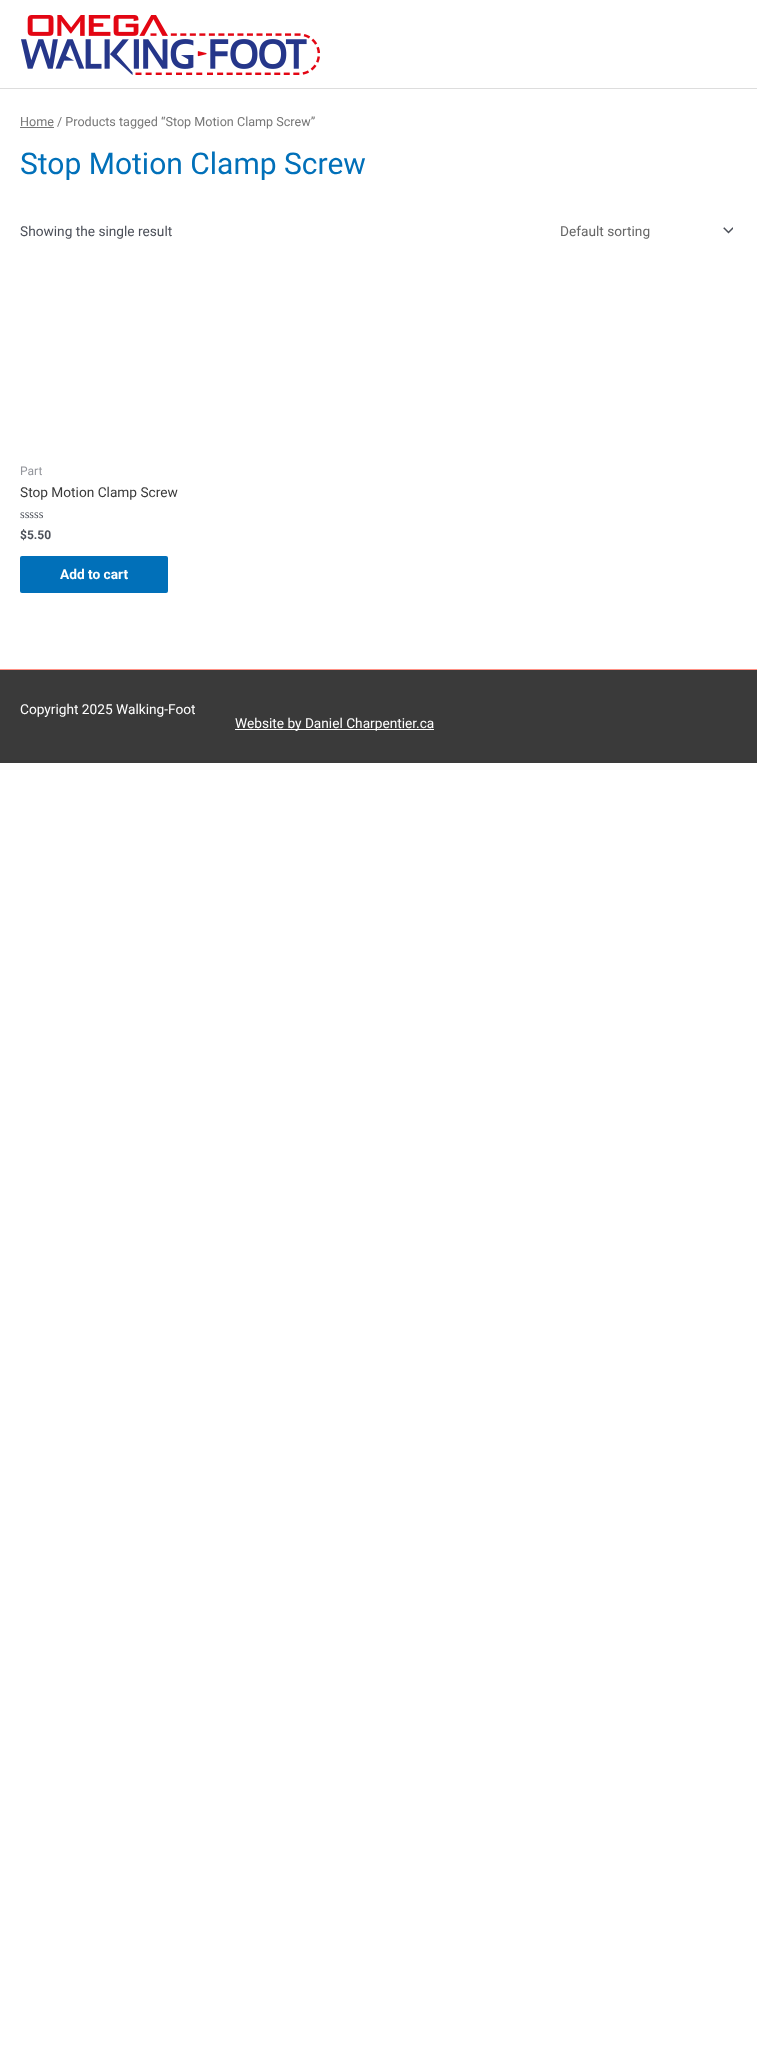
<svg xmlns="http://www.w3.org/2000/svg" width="757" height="2064">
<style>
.a{font:12.6px Roboto;fill:#777}
.b{font:30px Roboto;fill:#0170b9}
.c{font:13.7px Roboto;fill:#4b4f58}
.d{font:13.7px Roboto;fill:#666}
.e{font:12px Roboto;fill:#93959b}
.f{font:13.7px Roboto;fill:#3a3a3a}
.g{font:12px Liberation Serif;fill:#4b4f58}
.h{font:bold 12px Roboto;fill:#4b4f58}
.i{font:bold 13.7px Roboto;fill:#fff}
.j{font:13.7px Roboto;fill:#fff}
</style>
<rect width="100%" height="100%" fill="#fff"/>
<path fill="#ddd" d="M0 88h757v1H0z"/>
<image href="1.png" x="21" y="15" width="299" height="60"/>
<path fill="#777" d="M20 127h34v1H20z"/>
<image href="2.png" x="723" y="227" width="10" height="7"/>
<rect fill="#0170b9" x="20" y="556" width="148" height="37" rx="2"/>
<path fill="#ff9084" d="M0 669h757v1H0z"/>
<path fill="#3a3a3a" d="M0 670h757v93H0z"/>
<path fill="#fff" d="M235 729h199v1H235z"/>
<text class="a" x="20" y="126">Home / Products tagged “Stop Motion Clamp Screw”</text>
<text class="b" x="20" y="174">Stop Motion Clamp Screw</text>
<text class="c" x="20" y="236">Showing the single result</text>
<text class="d" x="560" y="236">Default sorting</text>
<text class="e" x="20" y="475">Part</text>
<text class="f" x="20" y="497">Stop Motion Clamp Screw</text>
<text class="g" x="20" y="518">sssss</text>
<text class="h" x="20" y="539">$5.50</text>
<text class="i" x="60" y="579">Add to cart</text>
<text class="j" x="20" y="714">Copyright 2025 Walking-Foot</text>
<text class="j" x="235" y="728">Website by Daniel Charpentier.ca</text>
</svg>
